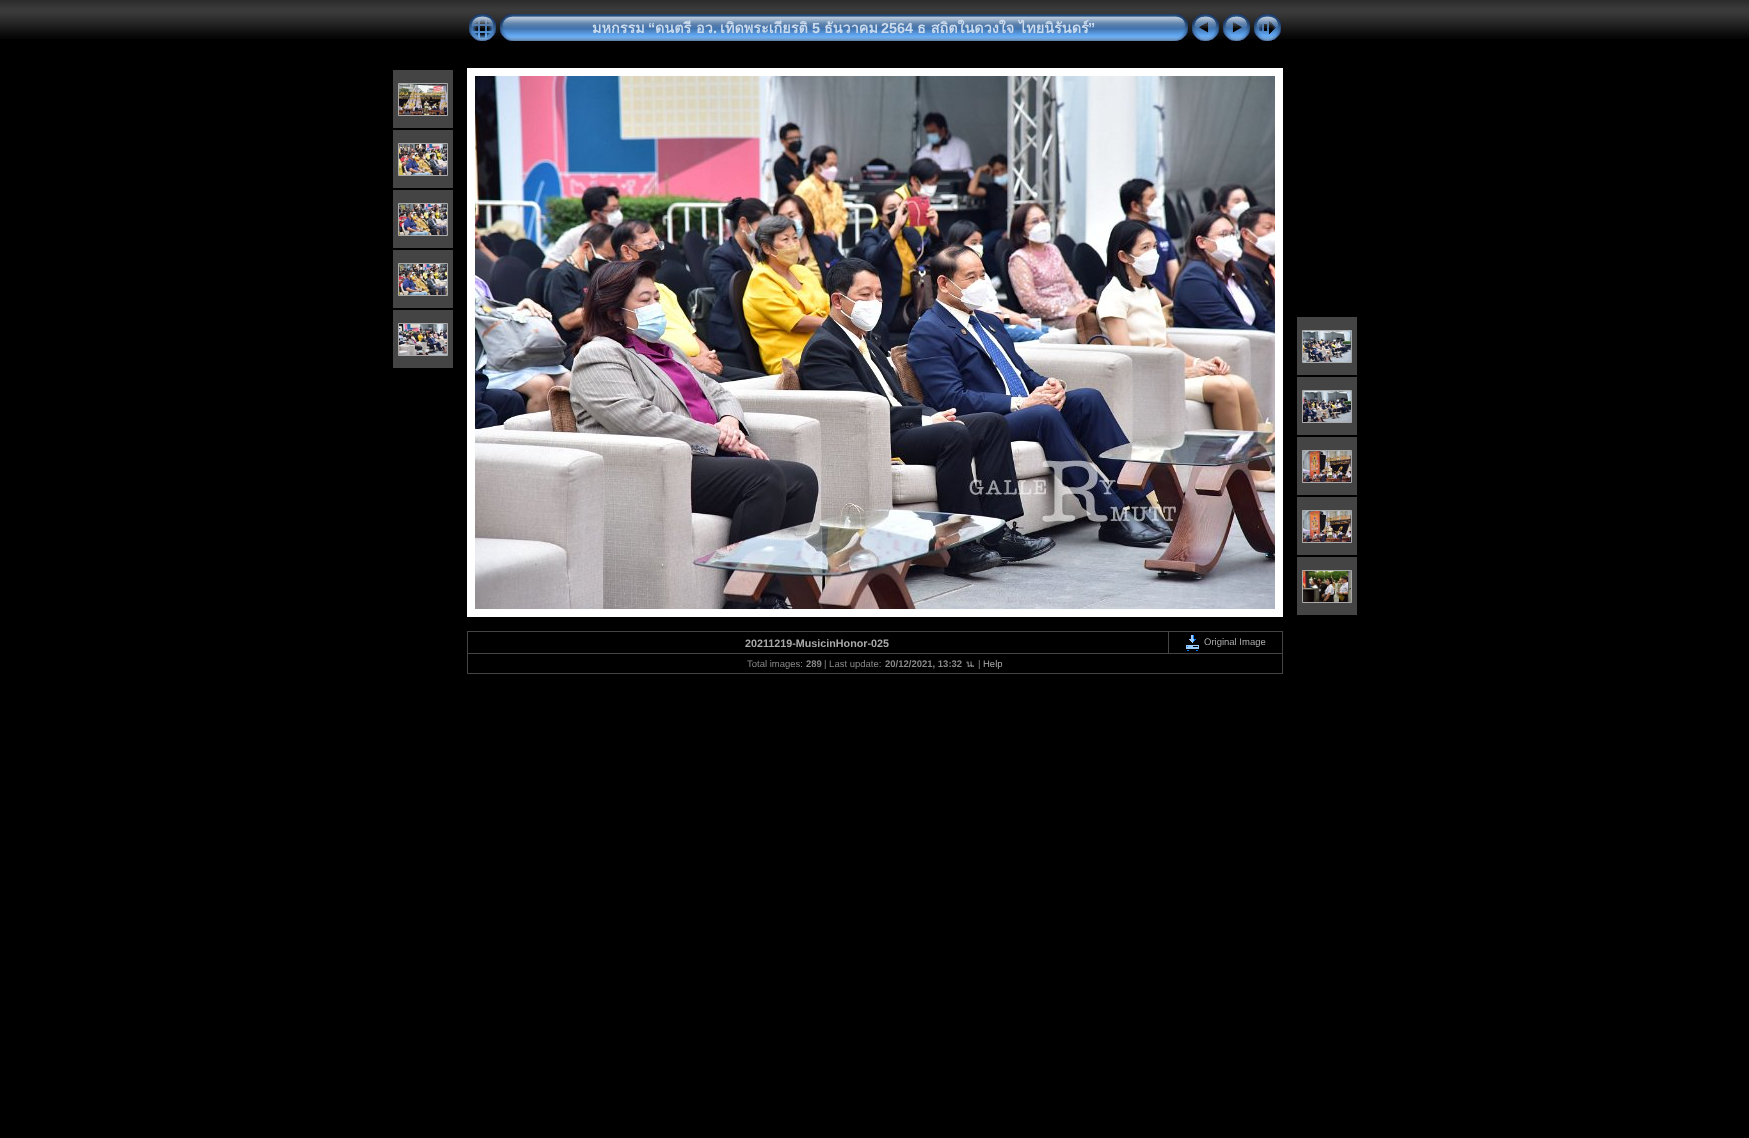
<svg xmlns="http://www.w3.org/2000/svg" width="1749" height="1138">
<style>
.a{font:bold 14.4px Loma;fill:#ccdcee}
.b{font:bold 14.4px Liberation Sans;fill:#ccdcee}
.c{font:bold 10.75px Liberation Sans;fill:#aaa}
.d{font:9.5px Liberation Sans;fill:#aaa}
.e{font:9.5px Liberation Sans;fill:#888}
.f{font:bold 9.5px Liberation Sans;fill:#888}
.g{font:bold 9.5px Loma;fill:#888}
</style>
<rect width="100%" height="100%" fill="#000"/>
<image href="1.png" x="0" y="0" width="1749" height="39"/>
<image href="2.png" x="469" y="14" width="27" height="27"/>
<image href="3.png" x="500" y="14" width="18" height="27"/>
<image href="4.png" x="518" y="14" width="652" height="27"/>
<image href="5.png" x="1170" y="14" width="18" height="27"/>
<image href="6.png" x="1192" y="14" width="27" height="27"/>
<image href="7.png" x="1223" y="14" width="27" height="27"/>
<image href="8.png" x="1254" y="14" width="27" height="27"/>
<path fill="#444" d="M393 70h60v58H393z"/>
<path fill="none" stroke="#aaa" d="M398.5 83.5h49v32H398.5z"/>
<image href="9.png" x="399" y="84" width="48" height="31"/>
<path fill="#444" d="M393 130h60v58H393z"/>
<path fill="none" stroke="#aaa" d="M398.5 143.5h49v32H398.5z"/>
<image href="10.png" x="399" y="144" width="48" height="31"/>
<path fill="#444" d="M393 190h60v58H393z"/>
<path fill="none" stroke="#aaa" d="M398.5 203.5h49v32H398.5z"/>
<image href="11.png" x="399" y="204" width="48" height="31"/>
<path fill="#444" d="M393 250h60v58H393z"/>
<path fill="none" stroke="#aaa" d="M398.5 263.5h49v32H398.5z"/>
<image href="12.png" x="399" y="264" width="48" height="31"/>
<path fill="#444" d="M393 310h60v58H393z"/>
<path fill="none" stroke="#aaa" d="M398.5 323.5h49v32H398.5z"/>
<image href="13.png" x="399" y="324" width="48" height="31"/>
<path fill="none" stroke="#fff" stroke-width="8" d="M471 72h808v541H471z"/>
<image href="14.png" x="475" y="76" width="800" height="533"/>
<path fill="#444" d="M1297 317h60v58H1297z"/>
<path fill="none" stroke="#aaa" d="M1302.5 330.5h49v32H1302.5z"/>
<image href="15.png" x="1303" y="331" width="48" height="31"/>
<path fill="#444" d="M1297 377h60v58H1297z"/>
<path fill="none" stroke="#aaa" d="M1302.5 390.5h49v32H1302.5z"/>
<image href="16.png" x="1303" y="391" width="48" height="31"/>
<path fill="#444" d="M1297 437h60v58H1297z"/>
<path fill="none" stroke="#aaa" d="M1302.5 450.5h49v32H1302.5z"/>
<image href="17.png" x="1303" y="451" width="48" height="31"/>
<path fill="#444" d="M1297 497h60v58H1297z"/>
<path fill="none" stroke="#aaa" d="M1302.5 510.5h49v32H1302.5z"/>
<image href="18.png" x="1303" y="511" width="48" height="31"/>
<path fill="#444" d="M1297 557h60v58H1297z"/>
<path fill="none" stroke="#aaa" d="M1302.5 570.5h49v32H1302.5z"/>
<image href="19.png" x="1303" y="571" width="48" height="31"/>
<path fill="#444" d="M467 631h816v1H467z"/>
<path fill="#444" d="M1282 631h1v43H1282z"/>
<path fill="#444" d="M467 673h816v1H467z"/>
<path fill="#444" d="M467 631h1v43H467z"/>
<path fill="#444" d="M467 653h816v1H467z"/>
<path fill="#444" d="M1168 631h1v23H1168z"/>
<image href="20.png" x="1186" y="635" width="13" height="16"/>
<text class="a" x="592" y="33">มหกรรม</text>
<text class="b" x="648" y="33">“</text>
<text class="a" x="655" y="33">ดนตรี อว</text>
<text class="b" x="713" y="33">.</text>
<text class="a" x="720" y="33">เทิดพระเกียรติ</text>
<text class="b" x="812" y="33">5</text>
<text class="a" x="824" y="33">ธันวาคม</text>
<text class="b" x="881" y="33">2564</text>
<text class="a" x="917" y="33">ธ สถิตในดวงใจ ไทยนิรันดร์</text>
<text class="b" x="1088" y="33">”</text>
<text class="c" x="745" y="647">20211219-MusicinHonor-025</text>
<text class="d" x="1204" y="645">Original Image</text>
<text class="e" x="747" y="667">Total images:</text>
<text class="f" x="806" y="667">289</text>
<text class="e" x="824" y="667">| Last update:</text>
<text class="f" x="885" y="667">20/12/2021, 13:32</text>
<text class="g" x="966" y="667">น</text>
<text class="f" x="972" y="667">.</text>
<text class="e" x="978" y="667">|</text>
<text class="d" x="983" y="667">Help</text>
</svg>
